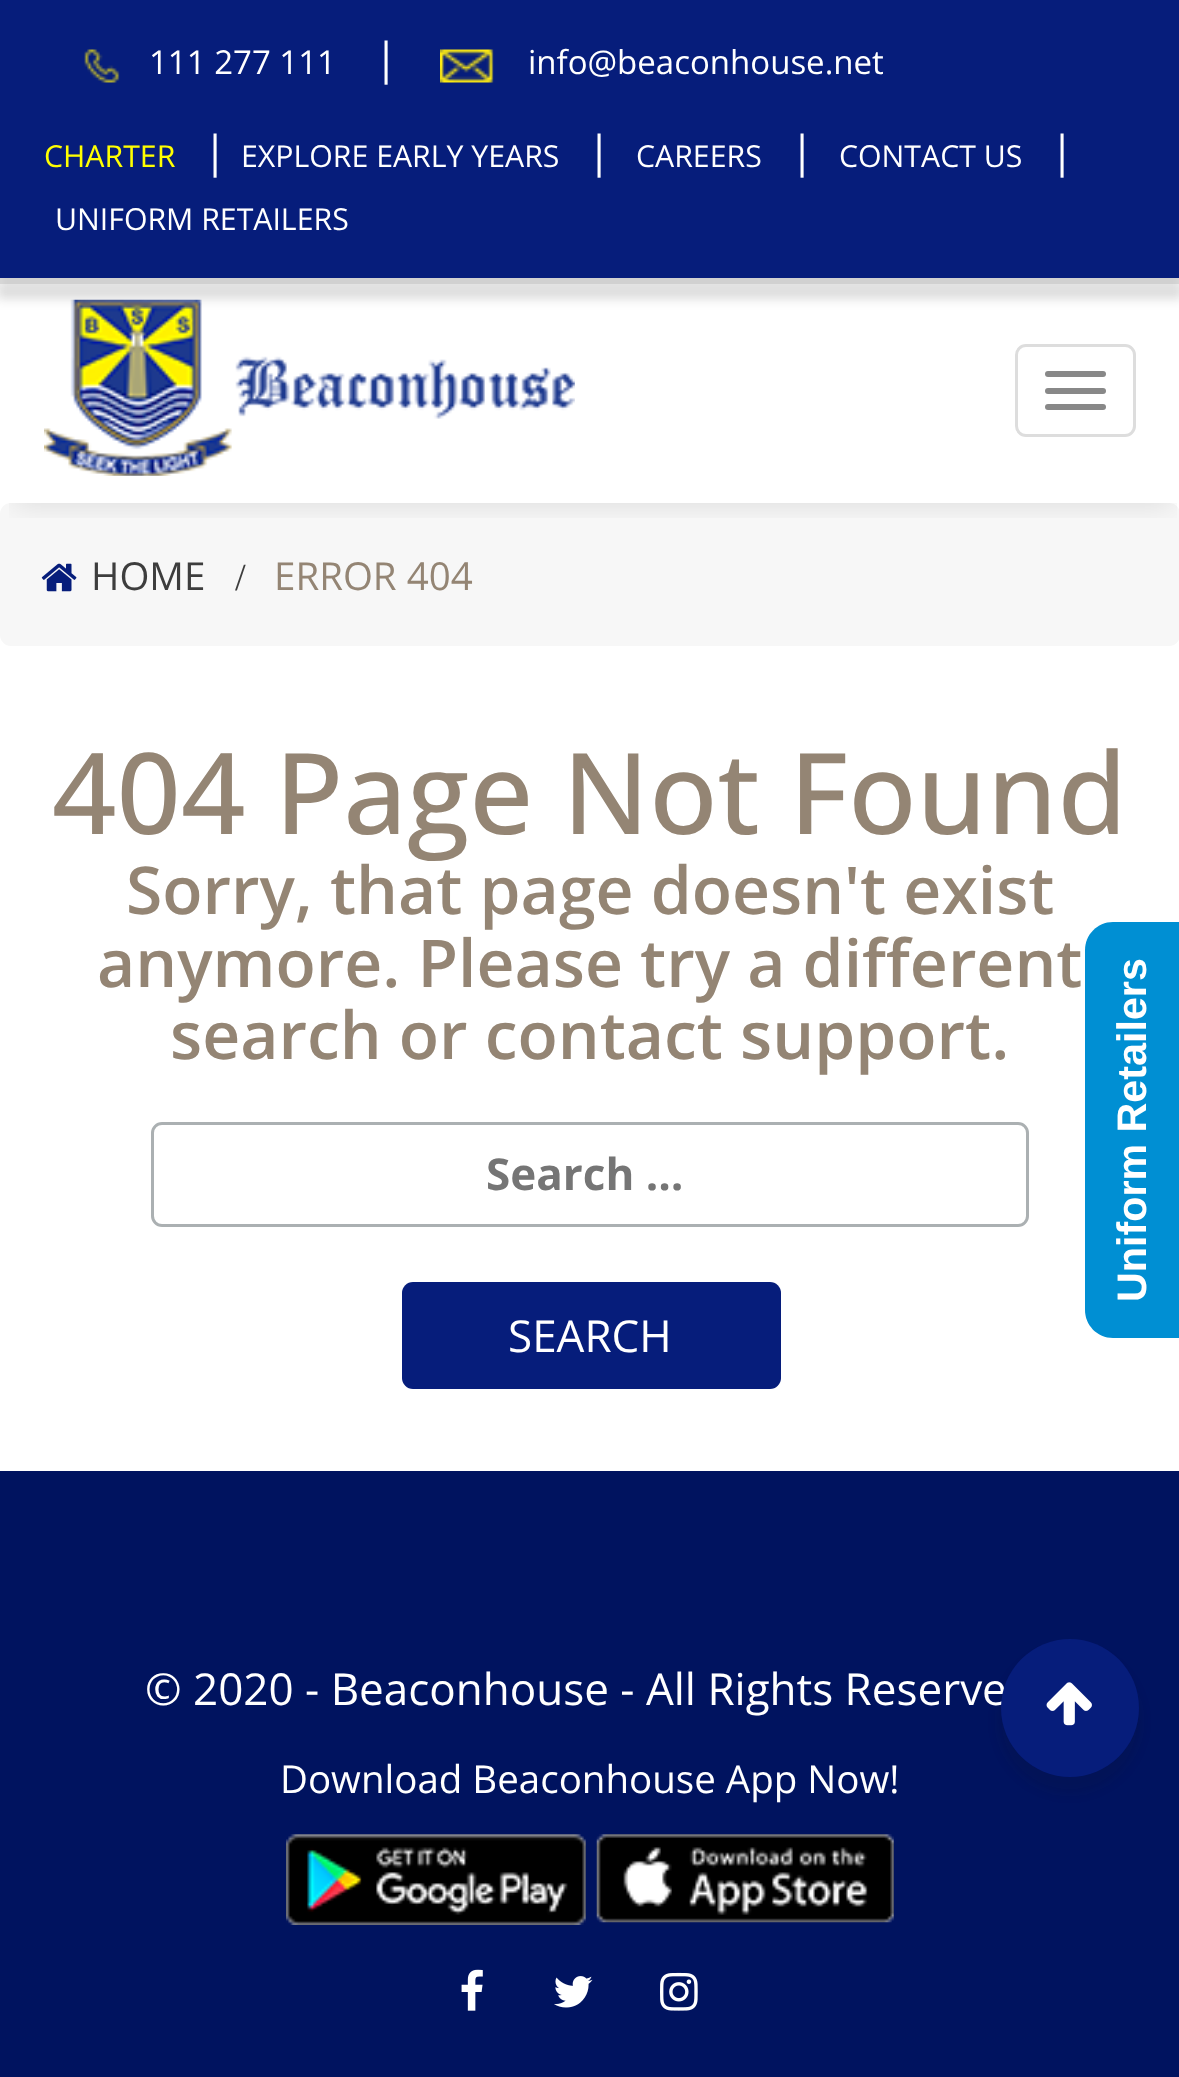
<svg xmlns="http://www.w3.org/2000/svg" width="1179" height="2077">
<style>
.a{font:33px Open Sans;fill:#fff}
.b{font:44px Open Sans;fill:#fff}
.c{font:30.25px Open Sans;fill:#ff0}
.d{font:30.25px Open Sans;fill:#fff}
.e{font:38.5px Open Sans;fill:#3d3d3d}
.f{font:38.5px Liberation Serif;fill:#3d3d3d}
.g{font:38.5px Open Sans;fill:#948574}
.h{font:500 112.75px Open Sans;fill:#948574}
.i{font:600 66px Open Sans;fill:#948574}
.j{font:bold 44px Open Sans;fill:#757575}
.k{font:38.5px Open Sans;fill:#fff}
.l{font:bold 41.25px Liberation Sans;fill:#fff}
</style>
<defs>
<clipPath id="clip1"><path d="M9 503h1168v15H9z"/></clipPath>
</defs>
<rect width="100%" height="100%" fill="#fff"/>
<path fill="#1717171a" filter="blur(5.5px)" d="M-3 289h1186v11H-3z"/>
<path fill="#e7e7e7" d="M0 278h1179v6H0z"/>
<path fill="#1717171a" filter="blur(5.5px)" d="M-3 11h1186v283H-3z"/>
<path fill="#061d7b" d="M0 0h1179v278H0z"/>
<image href="1.png" x="84" y="49" width="36" height="34"/>
<image href="2.png" x="440" y="49" width="54" height="34"/>
<rect fill="#f7f7f7" y="503" width="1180" height="143" rx="11"/>
<g clip-path="url(#clip1)">
<path fill="#0000001a" filter="blur(14px)" d="M14 303h1158v203H14z"/>
</g>
<image href="3.png" x="44" y="299" width="531" height="177"/>
<rect fill="none" stroke="#ddd" stroke-width="3" x="1016.5" y="345.5" width="118" height="90" rx="9.5"/>
<rect fill="#888" x="1045" y="371" width="61" height="6" rx="3"/>
<rect fill="#888" x="1045" y="388" width="61" height="6" rx="3"/>
<rect fill="#888" x="1045" y="404" width="61" height="6" rx="3"/>
<image href="4.png" x="41" y="563" width="36" height="29"/>
<rect fill="none" stroke="#abb0b2" stroke-width="3" x="152.5" y="1123.5" width="875" height="102" rx="9.5"/>
<rect fill="#061d7b" x="402" y="1282" width="379" height="107" rx="11"/>
<path fill="#00135f" d="M0 1471h1179v606H0z"/>
<image href="5.png" x="286" y="1834" width="300" height="91"/>
<image href="6.png" x="596" y="1834" width="298" height="89"/>
<image href="7.png" x="461" y="1969" width="22" height="42"/>
<image href="8.png" x="554" y="1976" width="39" height="32"/>
<image href="9.png" x="660" y="1972" width="38" height="39"/>
<rect fill="#1717171a" filter="blur(5.5px)" x="998" y="1650" width="143" height="143" rx="71.5"/>
<path fill="#008fd3" d="M1085 1310v-360c0-15 12-28 28-28h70v416h-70c-16 0-28-13-28-28z"/>
<text class="a" x="149" y="74">111 277 111</text>
<text class="b" x="374" y="74">|</text>
<text class="a" x="528" y="74">info@beaconhouse.net</text>
<text class="c" x="44" y="167">CHARTER</text>
<text class="b" x="203" y="167">|</text>
<text class="d" x="241" y="167">EXPLORE EARLY YEARS</text>
<text class="b" x="587" y="167">|</text>
<text class="d" x="636" y="167">CAREERS</text>
<text class="b" x="790" y="167">|</text>
<text class="d" x="839" y="167">CONTACT US</text>
<text class="b" x="1050" y="167">|</text>
<text class="d" x="55" y="230">UNIFORM RETAILERS</text>
<text class="e" x="91" y="590">HOME</text>
<text class="f" x="235" y="590">/</text>
<text class="g" x="274" y="590">ERROR 404</text>
<text class="h" x="52" y="834">404 Page Not Found</text>
<text class="i" x="126" y="914">Sorry, that page doesn't exist</text>
<text class="i" x="97" y="987">anymore. Please try a different</text>
<text class="i" x="170" y="1059">search or contact support.</text>
<text class="j" x="486" y="1190">Search …</text>
<text class="b" x="508" y="1352">SEARCH</text>
<text class="b" x="145" y="1705">© 2020 - Beaconhouse - All Rights Reserve</text>
<text class="k" x="280" y="1793">Download Beaconhouse App Now!</text>
<circle fill="#061d7b" cx="1070" cy="1708" r="69"/>
<image href="10.png" x="1046" y="1682" width="46" height="44"/>
<text class="l" x="1146" y="1302" transform="rotate(-90 1146 1302)">Uniform Retailers</text>
</svg>
